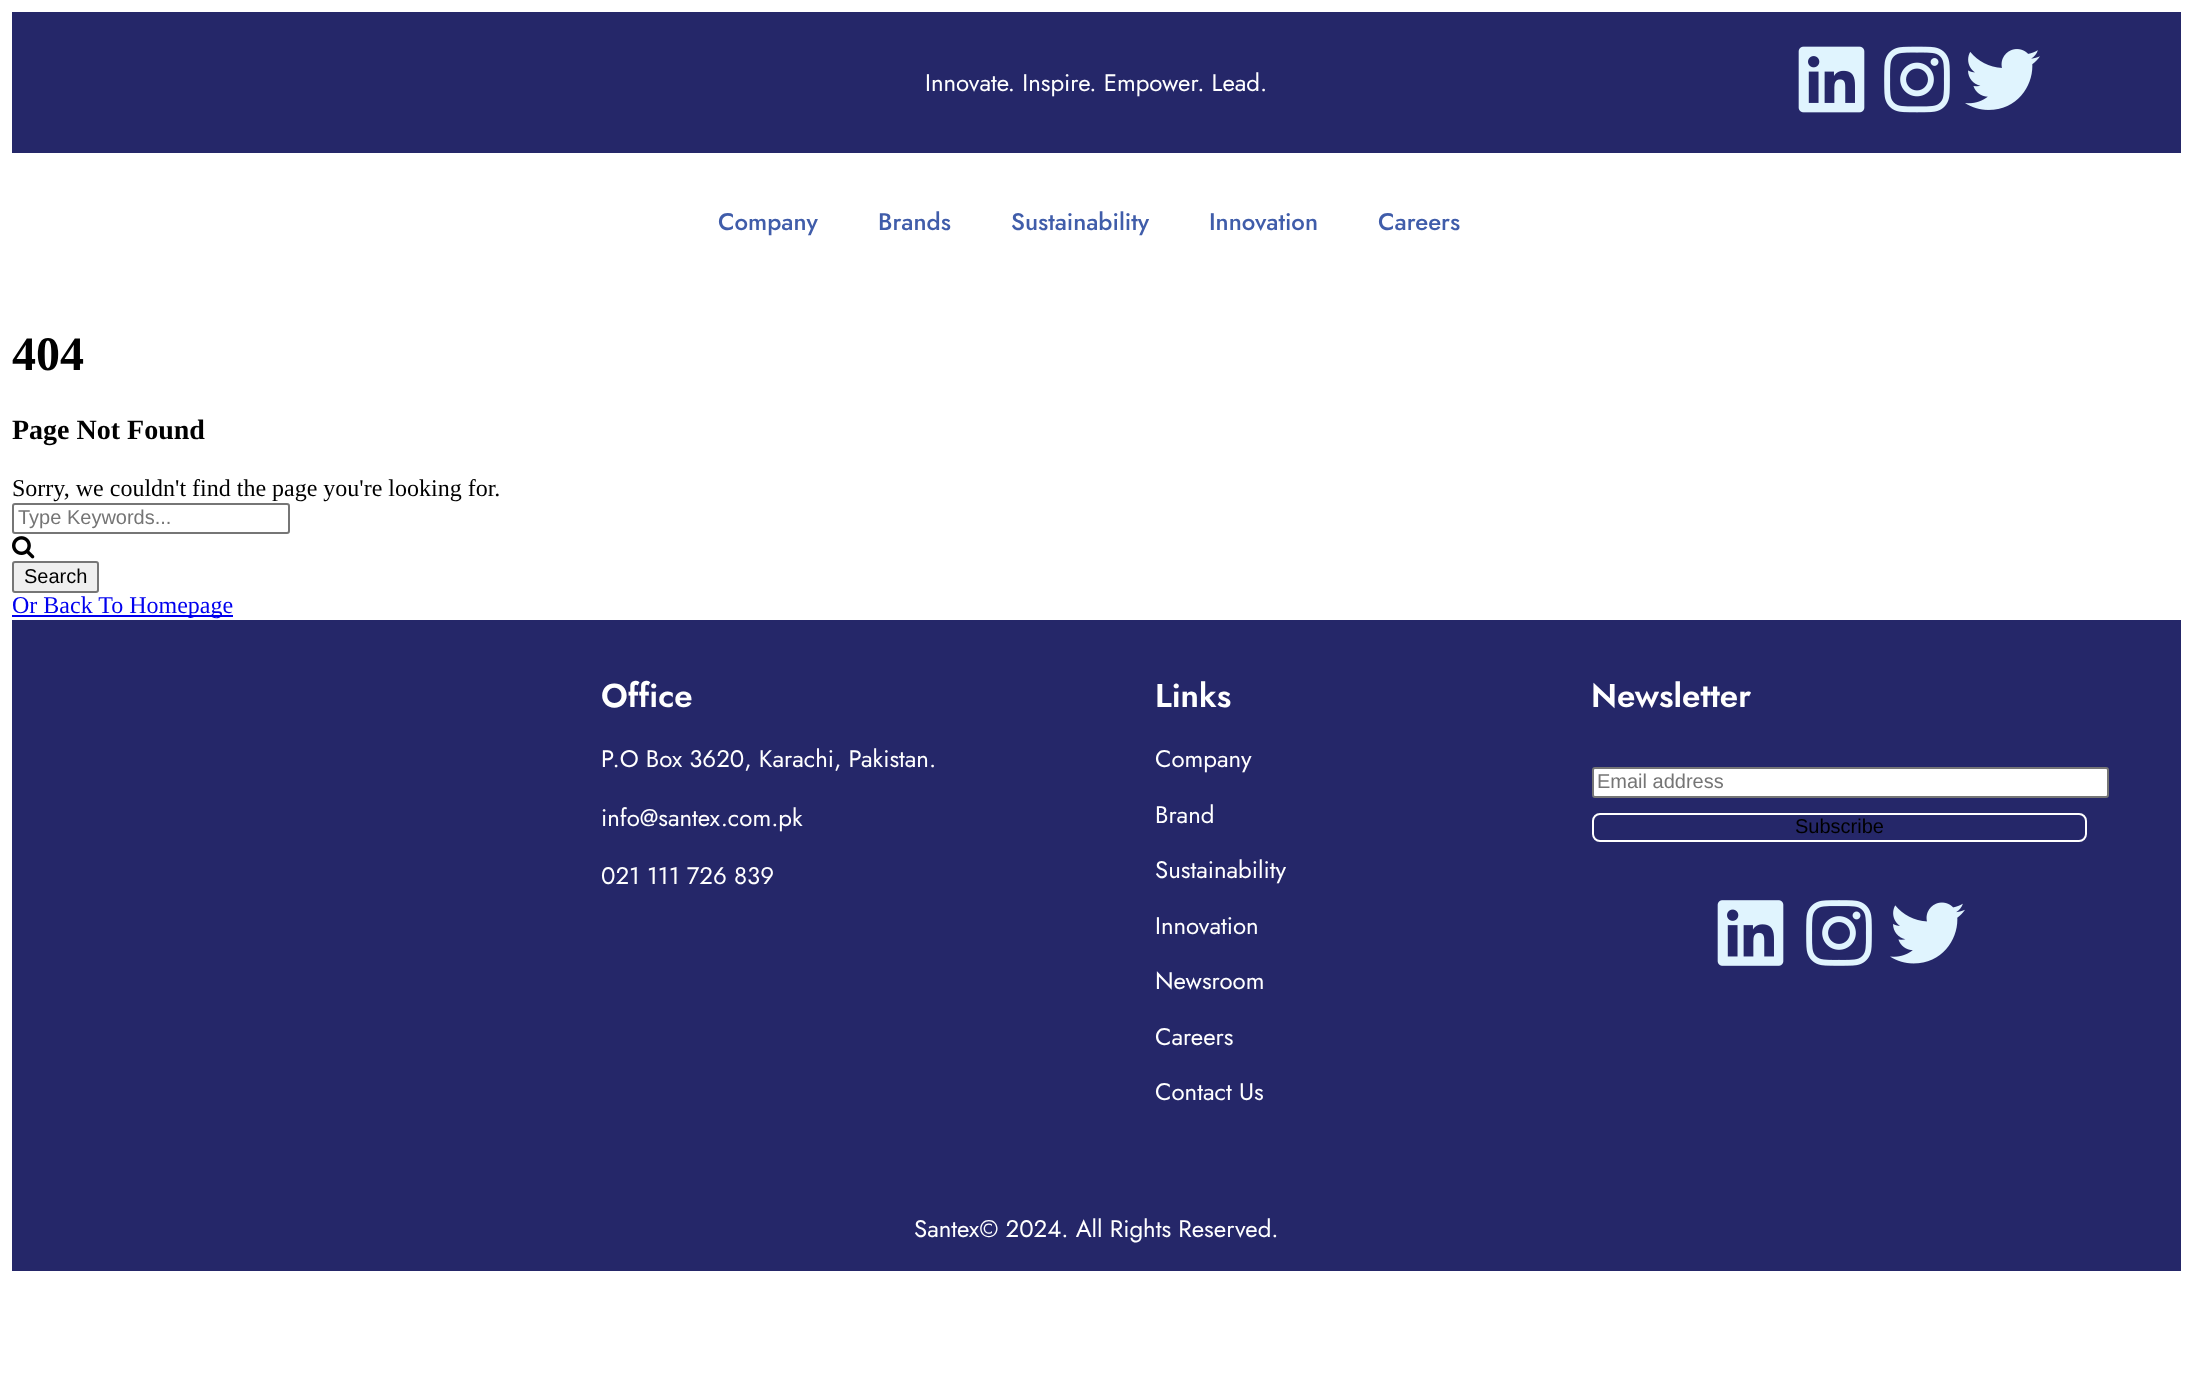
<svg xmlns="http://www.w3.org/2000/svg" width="2193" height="1390">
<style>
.a{font:24px Jost;fill:#fff}
.b{font:500 24px Jost;fill:#405daa}
.c{font:bold 48px Liberation Serif;fill:#000}
.d{font:bold 28px Liberation Serif;fill:#000}
.e{font:24px Liberation Serif;fill:#000}
.f{font:20px Liberation Sans;fill:#757575}
.g{font:20px Liberation Sans;fill:#000}
.h{font:24px Liberation Serif;fill:#00e}
.i{font:600 33px Jost;fill:#fff}
</style>
<rect width="100%" height="100%" fill="#fff"/>
<path fill="#252769" d="M12 12h2169v141H12z"/>
<image href="1.png" x="1798" y="46" width="67" height="67"/>
<image href="2.png" x="1884" y="46" width="66" height="67"/>
<image href="3.png" x="1965" y="49" width="75" height="61"/>
<rect fill="none" stroke="#767676" stroke-width="2" x="13" y="504" width="276" height="29" rx="2"/>
<image href="4.png" x="12" y="536" width="23" height="23"/>
<rect fill="#efefef" stroke="#767676" stroke-width="2" x="13" y="562" width="85" height="30" rx="2"/>
<path fill="#00e" d="M12 615h221v2H12z"/>
<path fill="#252769" d="M12 620h2169v651H12z"/>
<rect fill="#fff" stroke="#767676" stroke-width="2" x="1593" y="768" width="515" height="29" rx="2"/>
<rect fill="none" stroke="#fff" stroke-width="2" x="1593" y="814" width="493" height="27" rx="7"/>
<image href="5.png" x="1717" y="900" width="67" height="66"/>
<image href="6.png" x="1806" y="900" width="66" height="66"/>
<image href="7.png" x="1890" y="902" width="75" height="62"/>
<text class="a" x="925" y="91">Innovate. Inspire. Empower. Lead.</text>
<text class="b" x="718" y="230">Company</text>
<text class="b" x="878" y="230">Brands</text>
<text class="b" x="1011" y="230">Sustainability</text>
<text class="b" x="1209" y="230">Innovation</text>
<text class="b" x="1378" y="230">Careers</text>
<text class="c" x="12" y="370">404</text>
<text class="d" x="12" y="439">Page Not Found</text>
<text class="e" x="12" y="496">Sorry, we couldn't find the page you're looking for.</text>
<text class="f" x="18" y="524">Type Keywords...</text>
<text class="g" x="24" y="583">Search</text>
<text class="h" x="12" y="613">Or Back To Homepage</text>
<text class="i" x="601" y="707">Office</text>
<text class="a" x="601" y="767">P.O Box 3620, Karachi, Pakistan.</text>
<text class="a" x="601" y="826">info@santex.com.pk</text>
<text class="a" x="601" y="884">021 111 726 839</text>
<text class="i" x="1155" y="707">Links</text>
<text class="a" x="1155" y="767">Company</text>
<text class="a" x="1155" y="823">Brand</text>
<text class="a" x="1155" y="878">Sustainability</text>
<text class="a" x="1155" y="934">Innovation</text>
<text class="a" x="1155" y="989">Newsroom</text>
<text class="a" x="1155" y="1045">Careers</text>
<text class="a" x="1155" y="1100">Contact Us</text>
<text class="i" x="1591" y="707">Newsletter</text>
<text class="f" x="1597" y="788">Email address</text>
<text class="g" x="1795" y="833">Subscribe</text>
<text class="a" x="914" y="1237">Santex© 2024. All Rights Reserved.</text>
</svg>
